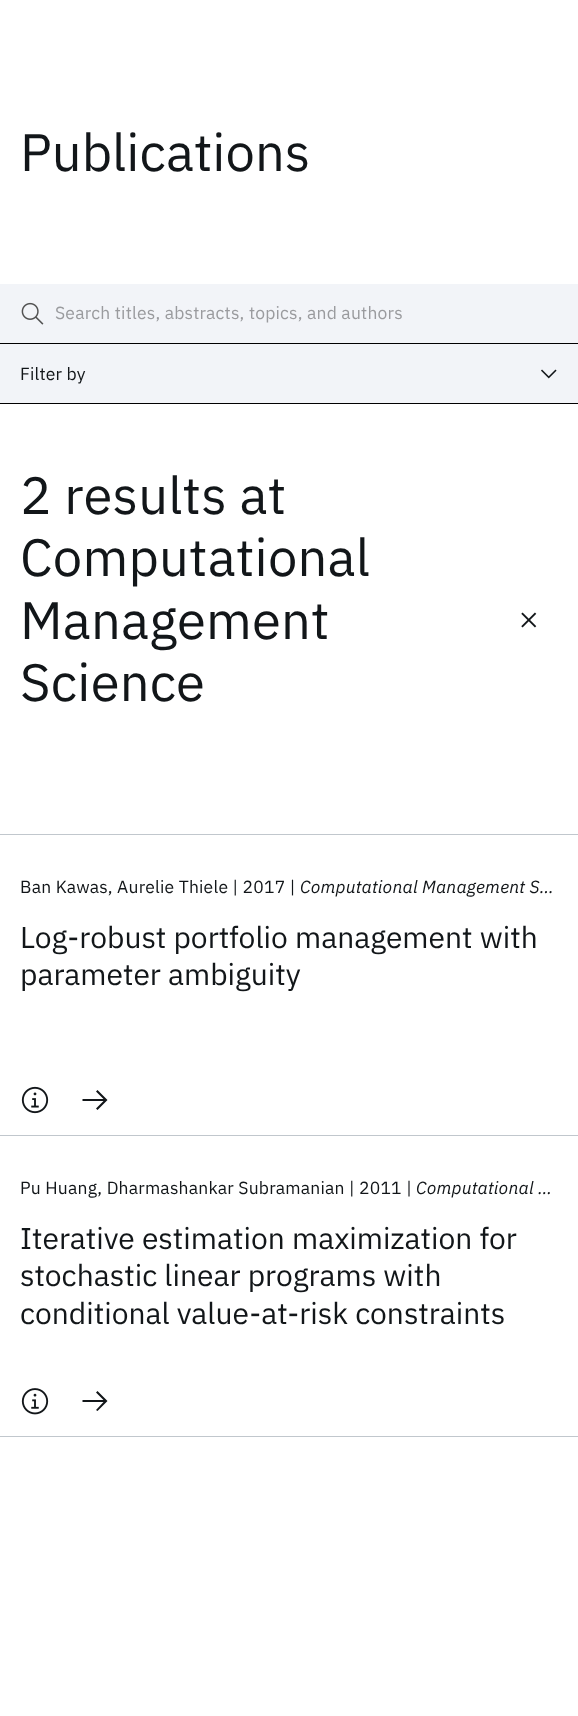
<svg xmlns="http://www.w3.org/2000/svg" width="578" height="1716">
<style>
.a{font:52.5px IBM Plex Sans;fill:#121619}
.b{font:17.5px IBM Plex Sans;letter-spacing:0.2px;fill:#9a9b9e}
.c{font:17.5px IBM Plex Sans;letter-spacing:0.2px;fill:#121619}
.d{font:52.5px IBM Plex Sans;letter-spacing:0.2px;fill:#121619}
.e{font:italic 17.5px IBM Plex Sans;letter-spacing:0.2px;fill:#121619}
.f{font:30px IBM Plex Sans;fill:#121619}
</style>
<rect width="100%" height="100%" fill="#fff"/>
<path fill="#f2f4f8" d="M0 284h578v119H0z"/>
<image href="1.png" x="21" y="302" width="23" height="23"/>
<path fill="#000" d="M0 343h578v1H0z"/>
<path fill="#000" d="M0 403h578v1H0z"/>
<image href="2.png" x="541" y="369" width="16" height="10"/>
<image href="3.png" x="521" y="612" width="16" height="16"/>
<path fill="#c1c7cd" d="M0 834h578v1H0z"/>
<path fill="#c1c7cd" d="M0 1135h578v1H0z"/>
<image href="4.png" x="21" y="1086" width="28" height="28"/>
<path fill="#121619" d="M97.5 1090l-1.5 1.5l7.5 7.5h-21v2h21l-7.5 7.5l1.5 1.5l10-10z"/>
<path fill="#c1c7cd" d="M0 1436h578v1H0z"/>
<image href="5.png" x="21" y="1388" width="28" height="27"/>
<path fill="#121619" d="M97.5 1391l-1.5 1.5l7.5 7.5h-21v2h21l-7.5 8l1.5 1l10-10z"/>
<text class="a" x="20" y="171">Publications</text>
<text class="b" x="55" y="319">Search titles, abstracts, topics, and authors</text>
<text class="c" x="20" y="380">Filter by</text>
<text class="d" x="20" y="514">2 results at</text>
<text class="d" x="20" y="576">Computational</text>
<text class="d" x="20" y="639">Management</text>
<text class="d" x="20" y="701">Science</text>
<text class="c" x="20" y="893">Ban Kawas, Aurelie Thiele | 2017 |</text>
<text class="e" x="300" y="893">Computational Management S…</text>
<text class="f" x="20" y="948">Log-robust portfolio management with</text>
<text class="f" x="20" y="985">parameter ambiguity</text>
<text class="c" x="20" y="1194">Pu Huang, Dharmashankar Subramanian | 2011 |</text>
<text class="e" x="416" y="1194">Computational …</text>
<text class="f" x="20" y="1249">Iterative estimation maximization for</text>
<text class="f" x="20" y="1286">stochastic linear programs with</text>
<text class="f" x="20" y="1324">conditional value-at-risk constraints</text>
</svg>
